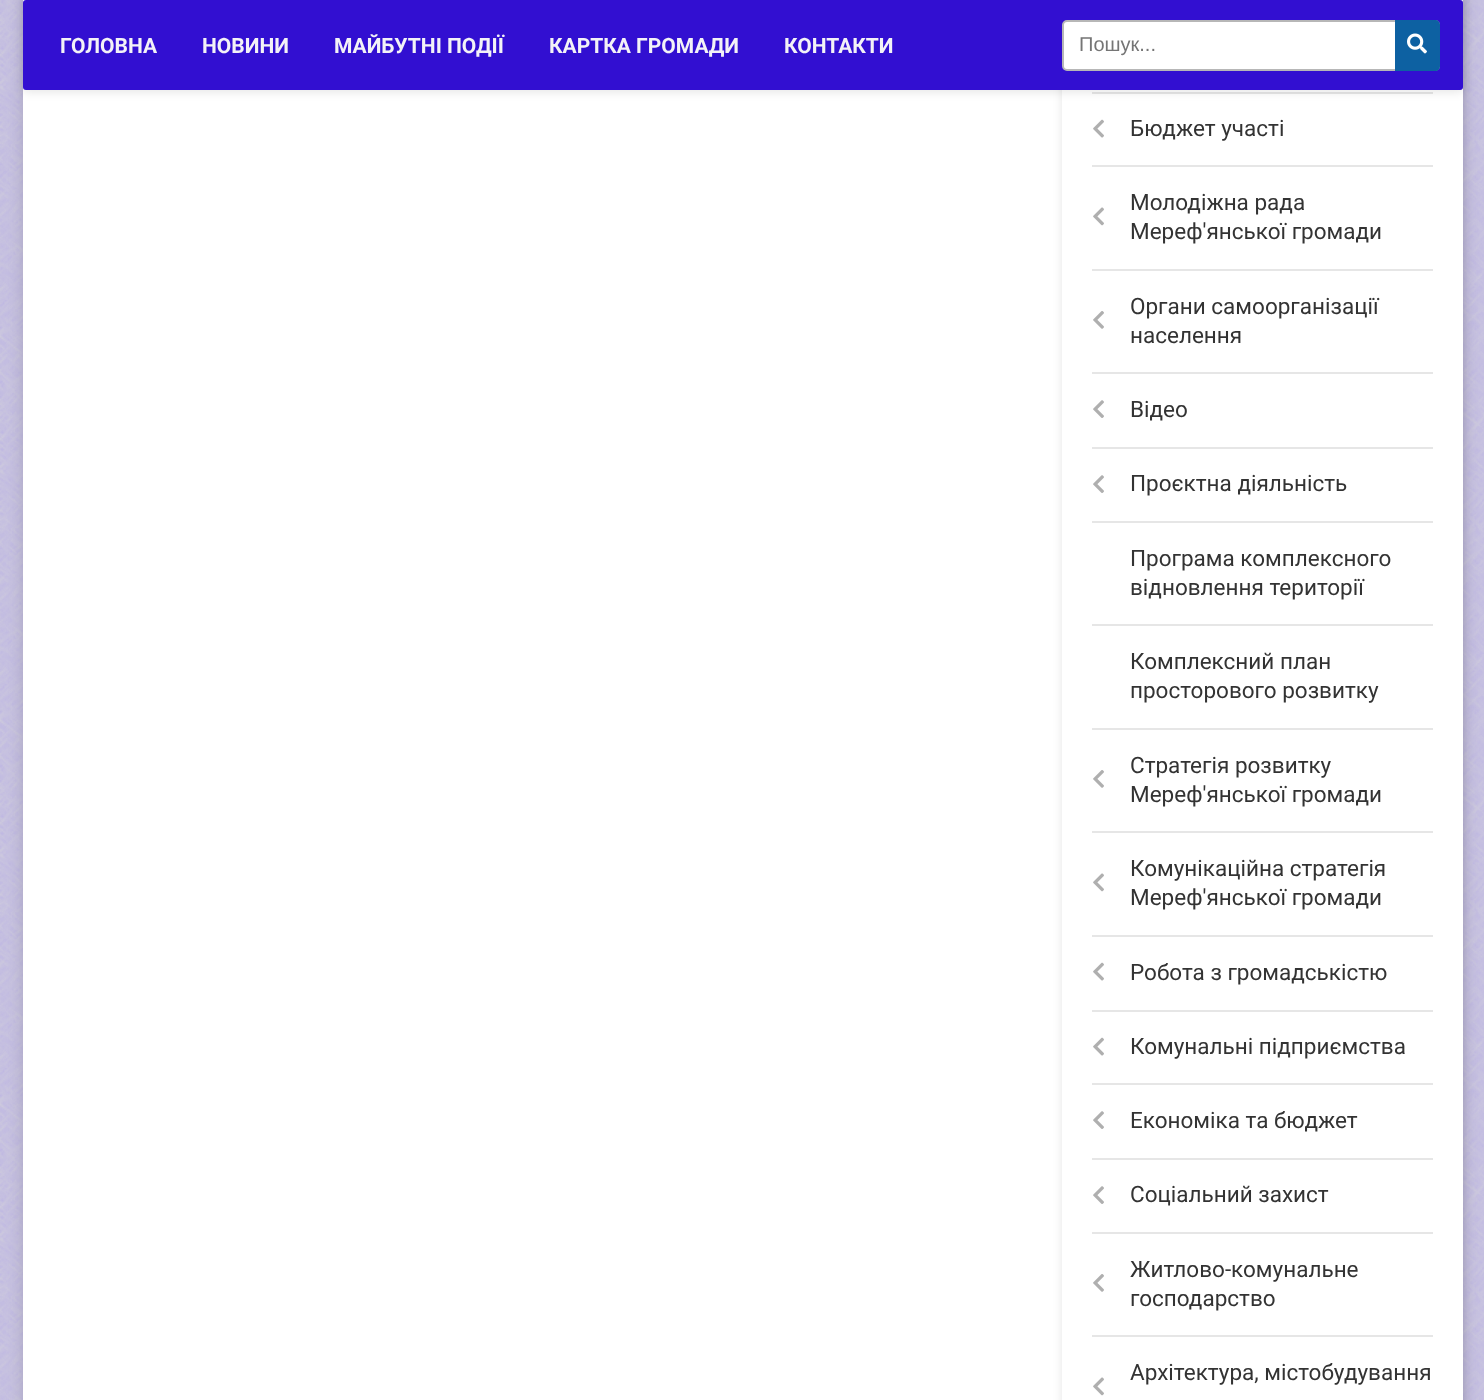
<svg xmlns="http://www.w3.org/2000/svg" width="1484" height="1400">
<style>
.a{font:bold 21px Roboto;fill:#f3f2f7}
.b{font:22.5px Roboto;fill:#333}
.c{font:20px Liberation Sans;fill:#757575}
</style>
<defs>
<clipPath id="clip1"><path d="M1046 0h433v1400h-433zm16-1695h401v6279h-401z" clip-rule="evenodd"/></clipPath>
</defs>
<rect width="100%" height="100%" fill="#b8aee8"/>
<image href="1.png" x="0" y="0" width="1484" height="1400"/>
<rect fill="#00000026" filter="blur(7.5px)" x="23" y="-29" width="1440" height="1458" rx="6"/>
<path fill="#fff" d="M23 0h1440v1400H23z"/>
<g clip-path="url(#clip1)">
<path fill="#0000001a" filter="blur(5px)" d="M1062 -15h401v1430H1062z"/>
</g>
<path fill="#e6e6e6" d="M1092 92h341v2H1092z"/>
<rect fill="#0000001a" filter="blur(5px)" x="23" y="2" width="1440" height="90" rx="3"/>
<rect fill="#320fd1" x="23" width="1440" height="90" rx="3"/>
<image href="2.png" x="1093" y="119" width="11" height="19"/>
<path fill="#e6e6e6" d="M1092 165h341v2H1092z"/>
<image href="3.png" x="1093" y="207" width="11" height="19"/>
<path fill="#e6e6e6" d="M1092 269h341v2H1092z"/>
<image href="4.png" x="1093" y="311" width="11" height="18"/>
<path fill="#e6e6e6" d="M1092 372h341v2H1092z"/>
<image href="5.png" x="1093" y="400" width="11" height="18"/>
<path fill="#e6e6e6" d="M1092 447h341v2H1092z"/>
<image href="5.png" x="1093" y="475" width="11" height="18"/>
<path fill="#e6e6e6" d="M1092 521h341v2H1092z"/>
<path fill="#e6e6e6" d="M1092 624h341v2H1092z"/>
<path fill="#e6e6e6" d="M1092 728h341v2H1092z"/>
<image href="4.png" x="1093" y="770" width="11" height="18"/>
<path fill="#e6e6e6" d="M1092 831h341v2H1092z"/>
<image href="3.png" x="1093" y="873" width="11" height="19"/>
<path fill="#e6e6e6" d="M1092 935h341v2H1092z"/>
<image href="2.png" x="1093" y="962" width="11" height="19"/>
<path fill="#e6e6e6" d="M1092 1010h341v2H1092z"/>
<image href="2.png" x="1093" y="1037" width="11" height="19"/>
<path fill="#e6e6e6" d="M1092 1083h341v2H1092z"/>
<image href="5.png" x="1093" y="1111" width="11" height="18"/>
<path fill="#e6e6e6" d="M1092 1158h341v2H1092z"/>
<image href="5.png" x="1093" y="1186" width="11" height="18"/>
<path fill="#e6e6e6" d="M1092 1232h341v2H1092z"/>
<image href="4.png" x="1093" y="1274" width="11" height="18"/>
<path fill="#e6e6e6" d="M1092 1335h341v2H1092z"/>
<image href="3.png" x="1093" y="1377" width="11" height="19"/>
<rect fill="#fff" stroke="#b7b7b7" stroke-width="2" x="1063" y="21" width="376" height="49" rx="4"/>
<path fill="#0d61a2" d="M1395 20h40c3 0 5 2 5 5v41c0 3-2 5-5 5h-40z"/>
<image href="6.png" x="1407" y="33" width="20" height="21"/>
<text class="a" x="60" y="53">ГОЛОВНА</text>
<text class="a" x="202" y="53">НОВИНИ</text>
<text class="a" x="334" y="53">МАЙБУТНІ ПОДІЇ</text>
<text class="a" x="549" y="53">КАРТКА ГРОМАДИ</text>
<text class="a" x="784" y="53">КОНТАКТИ</text>
<text class="b" x="1130" y="136">Бюджет участі</text>
<text class="b" x="1130" y="210">Молодіжна рада</text>
<text class="b" x="1130" y="239">Мереф'янської громади</text>
<text class="b" x="1130" y="314">Органи самоорганізації</text>
<text class="b" x="1130" y="343">населення</text>
<text class="b" x="1130" y="417">Відео</text>
<text class="b" x="1130" y="491">Проєктна діяльність</text>
<text class="b" x="1130" y="566">Програма комплексного</text>
<text class="b" x="1130" y="595">відновлення території</text>
<text class="b" x="1130" y="669">Комплексний план</text>
<text class="b" x="1130" y="698">просторового розвитку</text>
<text class="b" x="1130" y="773">Стратегія розвитку</text>
<text class="b" x="1130" y="802">Мереф'янської громади</text>
<text class="b" x="1130" y="876">Комунікаційна стратегія</text>
<text class="b" x="1130" y="905">Мереф'янської громади</text>
<text class="b" x="1130" y="980">Робота з громадськістю</text>
<text class="b" x="1130" y="1054">Комунальні підприємства</text>
<text class="b" x="1130" y="1128">Економіка та бюджет</text>
<text class="b" x="1130" y="1202">Соціальний захист</text>
<text class="b" x="1130" y="1277">Житлово-комунальне</text>
<text class="b" x="1130" y="1306">господарство</text>
<text class="b" x="1130" y="1380">Архітектура, містобудування</text>
<text class="c" x="1079" y="51">Пошук...</text>
</svg>
